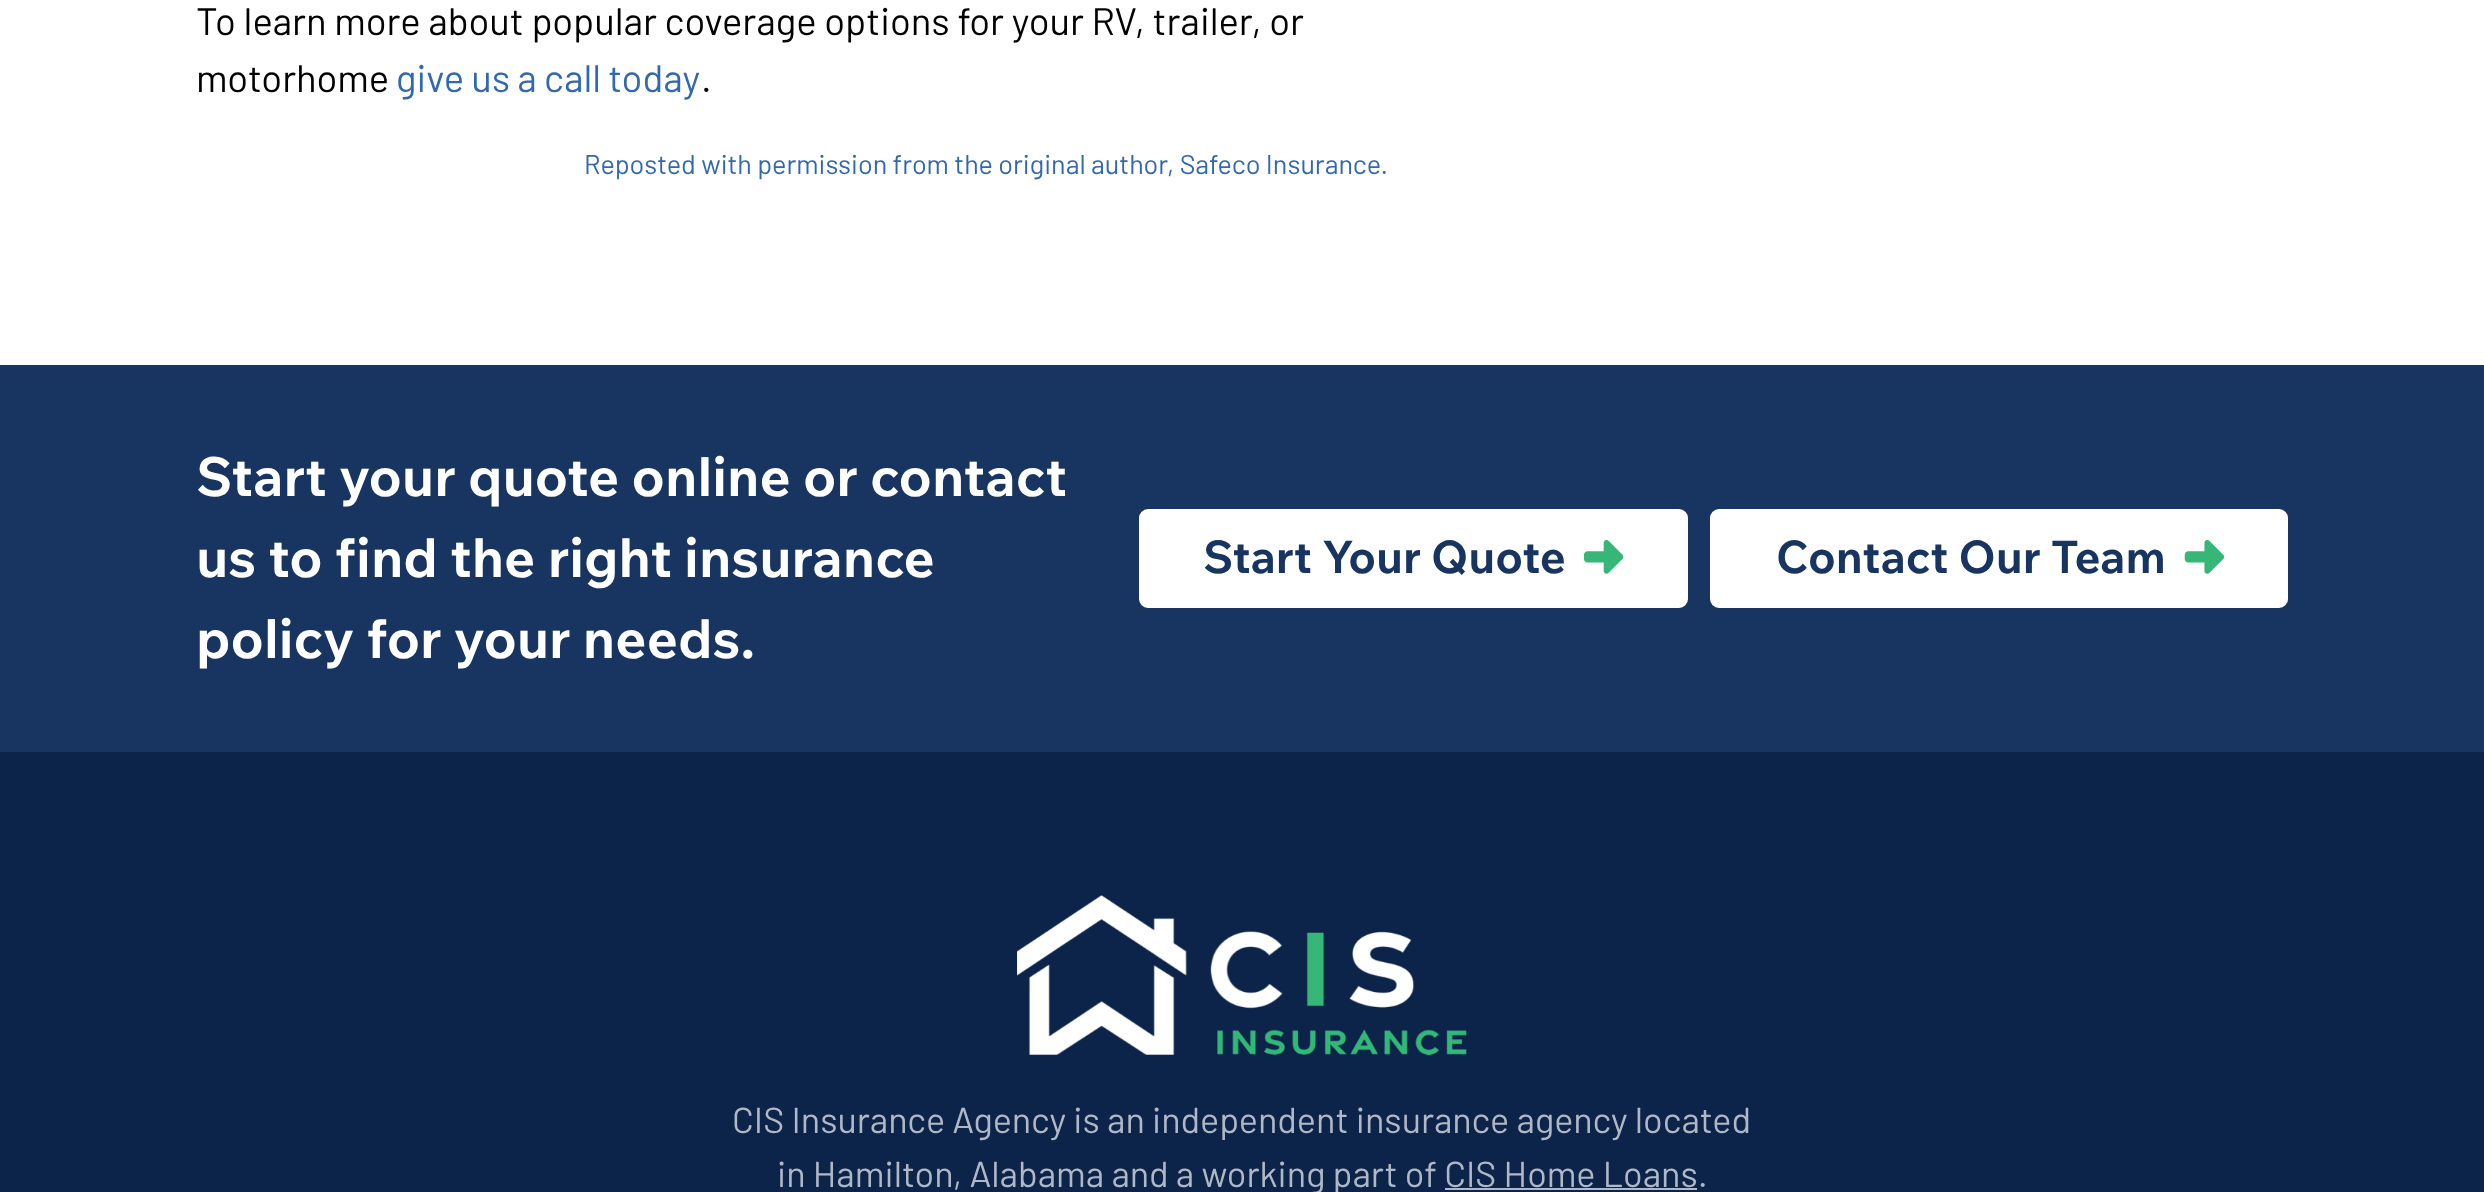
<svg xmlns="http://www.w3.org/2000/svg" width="2484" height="1192">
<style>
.a{font:38.25px Barlow;fill:#000}
.b{font:38.25px Barlow;fill:#3168b0}
.c{font:27px Barlow;fill:#3168b0}
.d{font:bold 54px Wix Madefor Text;fill:#fff}
.e{font:bold 45px Wix Madefor Text;fill:#183460}
.f{font:36px Barlow;fill:#b1b8c5}
</style>
<rect width="100%" height="100%" fill="#fff"/>
<path fill="#183460" d="M0 365h2484v387H0z"/>
<rect fill="#fff" stroke="#fff" stroke-width="2" x="1140" y="510" width="547" height="97" rx="8"/>
<image href="1.png" x="1584" y="540" width="40" height="34"/>
<rect fill="#fff" stroke="#fff" stroke-width="2" x="1711" y="510" width="576" height="97" rx="8"/>
<image href="2.png" x="2184" y="540" width="41" height="34"/>
<path fill="#0c244a" d="M0 752h2484v440H0z"/>
<image href="3.png" x="1017" y="895" width="450" height="160"/>
<path fill="#b1b8c5" d="M1445 1188h252v2H1445z"/>
<text class="a" x="196" y="35">To learn more about popular coverage options for your RV, trailer, or</text>
<text class="a" x="196" y="92">motorhome</text>
<text class="b" x="396" y="92" word-spacing="-0.5">give us a call today</text>
<text class="a" x="701" y="92">.</text>
<text class="c" x="584" y="174">Reposted with permission from the original author, Safeco Insurance.</text>
<text class="d" x="196" y="496">Start your quote online or contact</text>
<text class="d" x="196" y="577">us to find the right insurance</text>
<text class="d" x="196" y="658">policy for your needs.</text>
<text class="e" x="1203" y="573">Start Your Quote</text>
<text class="e" x="1776" y="573">Contact Our Team</text>
<text class="f" x="732" y="1133">CIS Insurance Agency is an independent insurance agency located</text>
<text class="f" x="777" y="1187">in Hamilton, Alabama and a working part of CIS Home Loans.</text>
</svg>
